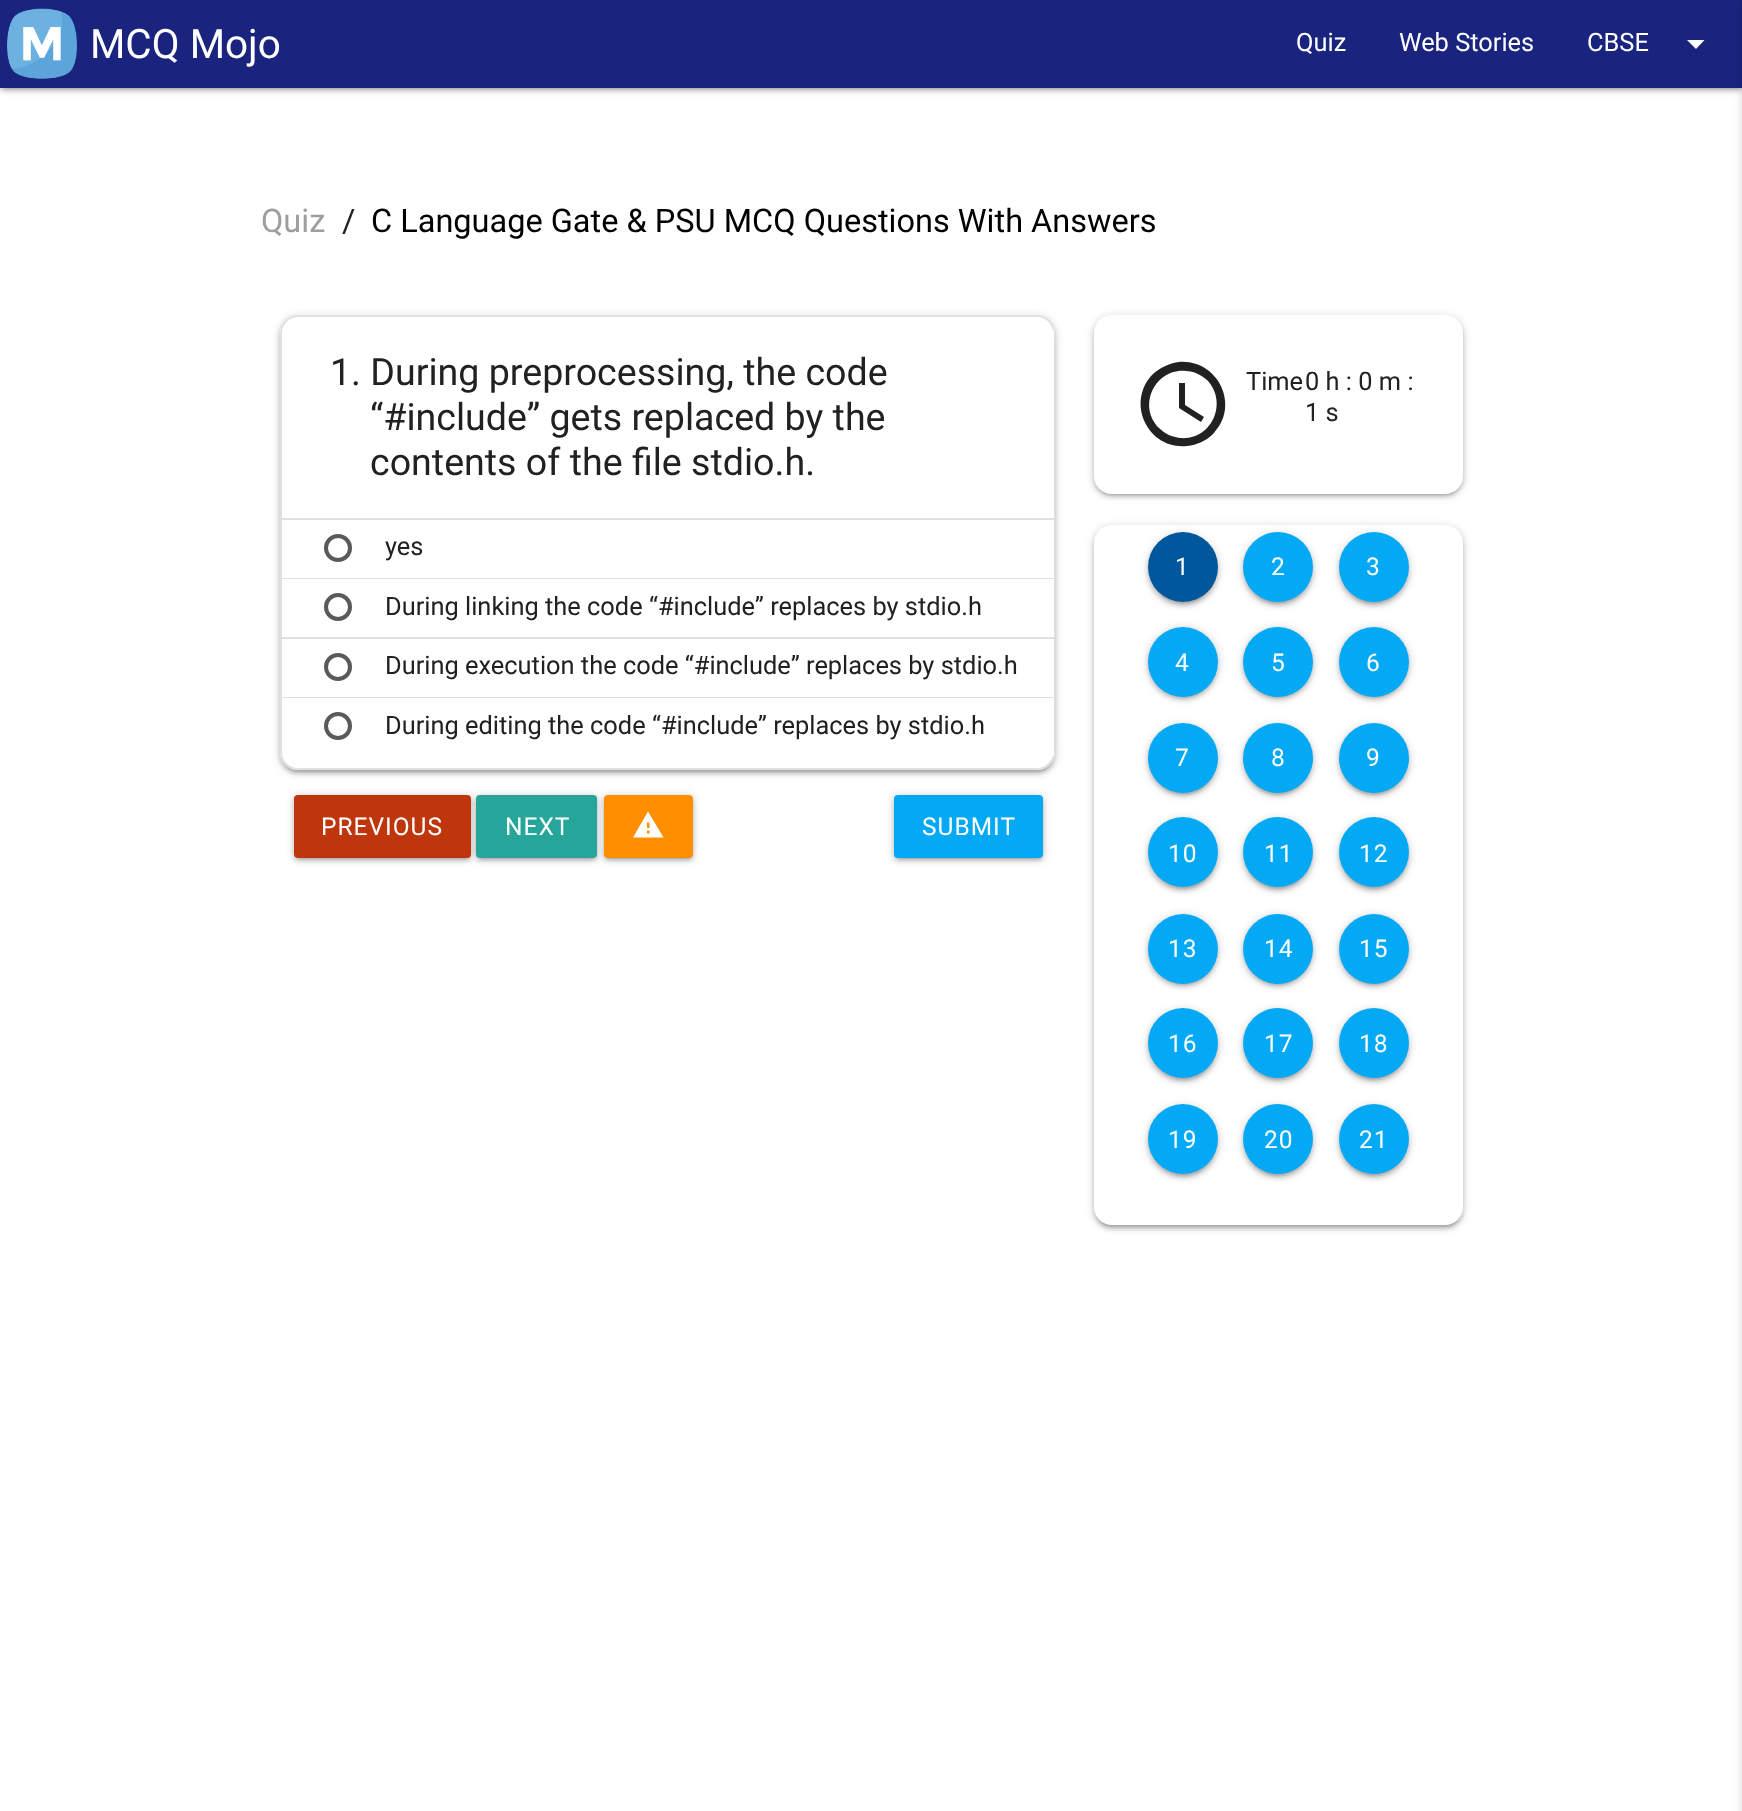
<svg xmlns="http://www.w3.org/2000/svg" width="1742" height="1811">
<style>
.a{font:40.5px Roboto;fill:#fff}
.b{font:25.4px Roboto;fill:#fff}
.c{font:32.5px Roboto;fill:#9e9e9e}
.d{font:32.5px Roboto;fill:#212121}
.e{font:32.5px Roboto;fill:#000}
.f{font:37.6px Roboto;fill:#212121}
.g{font:25.4px Roboto;fill:#212121}
.h{font:24.5px Roboto;letter-spacing:1px;fill:#fff}
</style>
<defs>
<clipPath id="clip1"><path d="M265 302h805v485h-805zm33 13h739c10 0 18 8 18 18v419c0 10-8 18-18 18h-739c-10 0-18-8-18-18v-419c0-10 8-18 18-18z" clip-rule="evenodd"/></clipPath>
<clipPath id="clip2"><path d="M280 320h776v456h-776zm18-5h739c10 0 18 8 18 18v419c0 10-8 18-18 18h-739c-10 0-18-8-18-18v-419c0-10 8-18 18-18z" clip-rule="evenodd"/></clipPath>
<clipPath id="clip3"><path d="M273 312h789v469h-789zm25 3h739c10 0 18 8 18 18v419c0 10-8 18-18 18h-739c-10 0-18-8-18-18v-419c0-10 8-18 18-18z" clip-rule="evenodd"/></clipPath>
<clipPath id="clip4"><rect x="282" y="317" width="772" height="451" rx="16"/></clipPath>
<clipPath id="clip5"><path d="M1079 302h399v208h-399zm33 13h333c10 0 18 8 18 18v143c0 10-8 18-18 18h-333c-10 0-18-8-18-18v-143c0-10 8-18 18-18z" clip-rule="evenodd"/></clipPath>
<clipPath id="clip6"><path d="M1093 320h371v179h-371zm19-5h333c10 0 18 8 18 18v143c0 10-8 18-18 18h-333c-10 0-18-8-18-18v-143c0-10 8-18 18-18z" clip-rule="evenodd"/></clipPath>
<clipPath id="clip7"><path d="M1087 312h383v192h-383zm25 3h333c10 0 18 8 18 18v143c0 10-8 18-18 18h-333c-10 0-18-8-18-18v-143c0-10 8-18 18-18z" clip-rule="evenodd"/></clipPath>
<clipPath id="clip8"><path d="M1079 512h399v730h-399zm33 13h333c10 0 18 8 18 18v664c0 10-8 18-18 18h-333c-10 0-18-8-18-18v-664c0-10 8-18 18-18z" clip-rule="evenodd"/></clipPath>
<clipPath id="clip9"><path d="M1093 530h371v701h-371zm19-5h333c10 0 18 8 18 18v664c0 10-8 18-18 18h-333c-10 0-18-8-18-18v-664c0-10 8-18 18-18z" clip-rule="evenodd"/></clipPath>
<clipPath id="clip10"><path d="M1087 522h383v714h-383zm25 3h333c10 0 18 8 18 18v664c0 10-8 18-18 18h-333c-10 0-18-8-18-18v-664c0-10 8-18 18-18z" clip-rule="evenodd"/></clipPath>
</defs>
<rect width="100%" height="100%" fill="#fff"/>
<path fill="#00000033" filter="blur(4.5px)" d="M0 2h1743v87H0z"/>
<path fill="#0000001f" filter="blur(1px)" d="M4 9h1736v80H4z"/>
<path fill="#00000024" filter="blur(2px)" d="M0 4h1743v87H0z"/>
<path fill="#1a237e" d="M0 0h1742v88H0z"/>
<image href="1.png" x="7" y="8" width="70" height="71"/>
<path fill="#fff" d="M1687 40h17.5l-8.5 9z"/>
<path fill="#00000033" filter="blur(4.5px)" d="M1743 2h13v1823H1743z"/>
<g clip-path="url(#clip1)">
<rect fill="#00000033" filter="blur(4.5px)" x="280" y="317" width="775" height="455" rx="18"/>
</g>
<g clip-path="url(#clip2)">
<rect fill="#0000001f" filter="blur(1px)" x="284" y="324" width="768" height="448" rx="14"/>
</g>
<g clip-path="url(#clip3)">
<rect fill="#00000024" filter="blur(2px)" x="280" y="319" width="775" height="455" rx="18"/>
</g>
<rect fill="none" stroke="#e0e0e0" stroke-width="2" x="281" y="316" width="773" height="453" rx="17"/>
<path fill="#fff" d="M1052 331h2v187H1052z"/>
<path fill="#e0e0e0" d="M282 518h772v2H282z"/>
<path fill="#fff" d="M1053 520h1v58H1053z"/>
<path fill="#e0e0e0" d="M282 578h772v1H282z"/>
<circle fill="none" stroke="#5a5a5a" stroke-width="4" cx="338" cy="548" r="12"/>
<path fill="#fff" d="M1053 579h1v58H1053z"/>
<path fill="#e0e0e0" d="M282 637h772v2H282z"/>
<circle fill="none" stroke="#5a5a5a" stroke-width="4" cx="338" cy="607" r="12"/>
<path fill="#fff" d="M1053 639h1v58H1053z"/>
<path fill="#e0e0e0" d="M282 697h772v1H282z"/>
<circle fill="none" stroke="#5a5a5a" stroke-width="4" cx="338" cy="667" r="12"/>
<g clip-path="url(#clip4)">
<path fill="#fff" d="M282 698h772v58H282z"/>
</g>
<circle fill="none" stroke="#5a5a5a" stroke-width="4" cx="338" cy="726" r="12"/>
<rect fill="#00000033" filter="blur(4.5px)" x="294" y="796" width="177" height="63" rx="4"/>
<path fill="#0000001f" filter="blur(1px)" d="M298 803h169v56H298z"/>
<rect fill="#00000024" filter="blur(2px)" x="294" y="798" width="177" height="63" rx="4"/>
<rect fill="#bf360c" x="294" y="795" width="177" height="63" rx="4"/>
<rect fill="#00000033" filter="blur(4.5px)" x="476" y="796" width="121" height="63" rx="4"/>
<path fill="#0000001f" filter="blur(1px)" d="M480 803h113v56H480z"/>
<rect fill="#00000024" filter="blur(2px)" x="476" y="798" width="121" height="63" rx="4"/>
<rect fill="#26a69a" x="476" y="795" width="121" height="63" rx="4"/>
<rect fill="#00000033" filter="blur(4.5px)" x="604" y="796" width="89" height="63" rx="4"/>
<path fill="#0000001f" filter="blur(1px)" d="M607 803h83v56H607z"/>
<rect fill="#00000024" filter="blur(2px)" x="604" y="798" width="89" height="63" rx="4"/>
<rect fill="#ff8f00" x="604" y="795" width="89" height="63" rx="4"/>
<path fill="#fff" d="M649.5 828v-5.5h-2.5v5.5zm0 5.5v-3h-2.5v3zm-16.5 4l15-26l15.5 26z"/>
<rect fill="#00000033" filter="blur(4.5px)" x="894" y="796" width="149" height="63" rx="4"/>
<path fill="#0000001f" filter="blur(1px)" d="M898 803h142v56H898z"/>
<rect fill="#00000024" filter="blur(2px)" x="894" y="798" width="149" height="63" rx="4"/>
<rect fill="#03a9f4" x="894" y="795" width="149" height="63" rx="4"/>
<g clip-path="url(#clip5)">
<rect fill="#00000033" filter="blur(4.5px)" x="1094" y="317" width="369" height="178" rx="18"/>
</g>
<g clip-path="url(#clip6)">
<rect fill="#0000001f" filter="blur(1px)" x="1097" y="324" width="363" height="171" rx="14"/>
</g>
<g clip-path="url(#clip7)">
<rect fill="#00000024" filter="blur(2px)" x="1094" y="319" width="369" height="178" rx="18"/>
</g>
<path fill="#212121" d="M1185 383v22l19 12l-3 5l-22-14v-25zm-26 45c6 6 13 9 21 10c31 3 49-35 27-58c-6-5-13-9-21-9c-31-3-49 35-27 57zm-6-54c7-6 16-11 26-12c39-3 62 44 34 72c-7 7-16 11-26 12c-39 4-62-44-34-72z"/>
<g clip-path="url(#clip8)">
<rect fill="#00000033" filter="blur(4.5px)" x="1094" y="527" width="369" height="700" rx="18"/>
</g>
<g clip-path="url(#clip9)">
<rect fill="#0000001f" filter="blur(1px)" x="1097" y="534" width="363" height="693" rx="14"/>
</g>
<g clip-path="url(#clip10)">
<rect fill="#00000024" filter="blur(2px)" x="1094" y="529" width="369" height="700" rx="18"/>
</g>
<rect fill="#00000033" filter="blur(4.5px)" x="1148" y="534" width="70" height="70" rx="35"/>
<rect fill="#0000001f" filter="blur(1px)" x="1152" y="541" width="63" height="63" rx="31.5"/>
<rect fill="#00000024" filter="blur(2px)" x="1148" y="536" width="70" height="70" rx="35"/>
<circle fill="#01579b" cx="1183" cy="567" r="35"/>
<rect fill="#00000033" filter="blur(4.5px)" x="1243" y="534" width="70" height="70" rx="35"/>
<rect fill="#0000001f" filter="blur(1px)" x="1246" y="541" width="63" height="63" rx="31.5"/>
<rect fill="#00000024" filter="blur(2px)" x="1243" y="536" width="70" height="70" rx="35"/>
<circle fill="#03a9f4" cx="1278" cy="567" r="35"/>
<rect fill="#00000033" filter="blur(4.5px)" x="1339" y="534" width="70" height="70" rx="35"/>
<rect fill="#0000001f" filter="blur(1px)" x="1342" y="541" width="63" height="63" rx="31.5"/>
<rect fill="#00000024" filter="blur(2px)" x="1339" y="536" width="70" height="70" rx="35"/>
<circle fill="#03a9f4" cx="1374" cy="567" r="35"/>
<rect fill="#00000033" filter="blur(4.5px)" x="1148" y="628" width="70" height="70" rx="35"/>
<rect fill="#0000001f" filter="blur(1px)" x="1152" y="635" width="63" height="63" rx="31.5"/>
<rect fill="#00000024" filter="blur(2px)" x="1148" y="630" width="70" height="70" rx="35"/>
<circle fill="#03a9f4" cx="1183" cy="662" r="35"/>
<rect fill="#00000033" filter="blur(4.5px)" x="1243" y="628" width="70" height="70" rx="35"/>
<rect fill="#0000001f" filter="blur(1px)" x="1246" y="635" width="63" height="63" rx="31.5"/>
<rect fill="#00000024" filter="blur(2px)" x="1243" y="630" width="70" height="70" rx="35"/>
<circle fill="#03a9f4" cx="1278" cy="662" r="35"/>
<rect fill="#00000033" filter="blur(4.5px)" x="1339" y="628" width="70" height="70" rx="35"/>
<rect fill="#0000001f" filter="blur(1px)" x="1342" y="635" width="63" height="63" rx="31.5"/>
<rect fill="#00000024" filter="blur(2px)" x="1339" y="630" width="70" height="70" rx="35"/>
<circle fill="#03a9f4" cx="1374" cy="662" r="35"/>
<rect fill="#00000033" filter="blur(4.5px)" x="1148" y="725" width="70" height="70" rx="35"/>
<rect fill="#0000001f" filter="blur(1px)" x="1152" y="732" width="63" height="63" rx="31.5"/>
<rect fill="#00000024" filter="blur(2px)" x="1148" y="726" width="70" height="70" rx="35"/>
<circle fill="#03a9f4" cx="1183" cy="758" r="35"/>
<rect fill="#00000033" filter="blur(4.5px)" x="1243" y="725" width="70" height="70" rx="35"/>
<rect fill="#0000001f" filter="blur(1px)" x="1246" y="732" width="63" height="63" rx="31.5"/>
<rect fill="#00000024" filter="blur(2px)" x="1243" y="726" width="70" height="70" rx="35"/>
<circle fill="#03a9f4" cx="1278" cy="758" r="35"/>
<rect fill="#00000033" filter="blur(4.5px)" x="1339" y="725" width="70" height="70" rx="35"/>
<rect fill="#0000001f" filter="blur(1px)" x="1342" y="732" width="63" height="63" rx="31.5"/>
<rect fill="#00000024" filter="blur(2px)" x="1339" y="726" width="70" height="70" rx="35"/>
<circle fill="#03a9f4" cx="1374" cy="758" r="35"/>
<rect fill="#00000033" filter="blur(4.5px)" x="1148" y="819" width="70" height="70" rx="35"/>
<rect fill="#0000001f" filter="blur(1px)" x="1152" y="826" width="63" height="63" rx="31.5"/>
<rect fill="#00000024" filter="blur(2px)" x="1148" y="821" width="70" height="70" rx="35"/>
<circle fill="#03a9f4" cx="1183" cy="852" r="35"/>
<rect fill="#00000033" filter="blur(4.5px)" x="1243" y="819" width="70" height="70" rx="35"/>
<rect fill="#0000001f" filter="blur(1px)" x="1246" y="826" width="63" height="63" rx="31.5"/>
<rect fill="#00000024" filter="blur(2px)" x="1243" y="821" width="70" height="70" rx="35"/>
<circle fill="#03a9f4" cx="1278" cy="852" r="35"/>
<rect fill="#00000033" filter="blur(4.5px)" x="1339" y="819" width="70" height="70" rx="35"/>
<rect fill="#0000001f" filter="blur(1px)" x="1342" y="826" width="63" height="63" rx="31.5"/>
<rect fill="#00000024" filter="blur(2px)" x="1339" y="821" width="70" height="70" rx="35"/>
<circle fill="#03a9f4" cx="1374" cy="852" r="35"/>
<rect fill="#00000033" filter="blur(4.5px)" x="1148" y="915" width="70" height="70" rx="35"/>
<rect fill="#0000001f" filter="blur(1px)" x="1152" y="922" width="63" height="63" rx="31.5"/>
<rect fill="#00000024" filter="blur(2px)" x="1148" y="917" width="70" height="70" rx="35"/>
<circle fill="#03a9f4" cx="1183" cy="949" r="35"/>
<rect fill="#00000033" filter="blur(4.5px)" x="1243" y="915" width="70" height="70" rx="35"/>
<rect fill="#0000001f" filter="blur(1px)" x="1246" y="922" width="63" height="63" rx="31.5"/>
<rect fill="#00000024" filter="blur(2px)" x="1243" y="917" width="70" height="70" rx="35"/>
<circle fill="#03a9f4" cx="1278" cy="949" r="35"/>
<rect fill="#00000033" filter="blur(4.5px)" x="1339" y="915" width="70" height="70" rx="35"/>
<rect fill="#0000001f" filter="blur(1px)" x="1342" y="922" width="63" height="63" rx="31.5"/>
<rect fill="#00000024" filter="blur(2px)" x="1339" y="917" width="70" height="70" rx="35"/>
<circle fill="#03a9f4" cx="1374" cy="949" r="35"/>
<rect fill="#00000033" filter="blur(4.5px)" x="1148" y="1010" width="70" height="70" rx="35"/>
<rect fill="#0000001f" filter="blur(1px)" x="1152" y="1017" width="63" height="63" rx="31.5"/>
<rect fill="#00000024" filter="blur(2px)" x="1148" y="1012" width="70" height="70" rx="35"/>
<circle fill="#03a9f4" cx="1183" cy="1043" r="35"/>
<rect fill="#00000033" filter="blur(4.5px)" x="1243" y="1010" width="70" height="70" rx="35"/>
<rect fill="#0000001f" filter="blur(1px)" x="1246" y="1017" width="63" height="63" rx="31.5"/>
<rect fill="#00000024" filter="blur(2px)" x="1243" y="1012" width="70" height="70" rx="35"/>
<circle fill="#03a9f4" cx="1278" cy="1043" r="35"/>
<rect fill="#00000033" filter="blur(4.5px)" x="1339" y="1010" width="70" height="70" rx="35"/>
<rect fill="#0000001f" filter="blur(1px)" x="1342" y="1017" width="63" height="63" rx="31.5"/>
<rect fill="#00000024" filter="blur(2px)" x="1339" y="1012" width="70" height="70" rx="35"/>
<circle fill="#03a9f4" cx="1374" cy="1043" r="35"/>
<rect fill="#00000033" filter="blur(4.5px)" x="1148" y="1106" width="70" height="70" rx="35"/>
<rect fill="#0000001f" filter="blur(1px)" x="1152" y="1113" width="63" height="63" rx="31.5"/>
<rect fill="#00000024" filter="blur(2px)" x="1148" y="1108" width="70" height="70" rx="35"/>
<circle fill="#03a9f4" cx="1183" cy="1139" r="35"/>
<rect fill="#00000033" filter="blur(4.5px)" x="1243" y="1106" width="70" height="70" rx="35"/>
<rect fill="#0000001f" filter="blur(1px)" x="1246" y="1113" width="63" height="63" rx="31.5"/>
<rect fill="#00000024" filter="blur(2px)" x="1243" y="1108" width="70" height="70" rx="35"/>
<circle fill="#03a9f4" cx="1278" cy="1139" r="35"/>
<rect fill="#00000033" filter="blur(4.5px)" x="1339" y="1106" width="70" height="70" rx="35"/>
<rect fill="#0000001f" filter="blur(1px)" x="1342" y="1113" width="63" height="63" rx="31.5"/>
<rect fill="#00000024" filter="blur(2px)" x="1339" y="1108" width="70" height="70" rx="35"/>
<circle fill="#03a9f4" cx="1374" cy="1139" r="35"/>
<text class="a" x="90" y="58">MCQ Mojo</text>
<text class="b" x="1296" y="51">Quiz</text>
<text class="b" x="1399" y="51">Web Stories</text>
<text class="b" x="1587" y="51">CBSE</text>
<text class="c" x="261" y="232">Quiz</text>
<text class="d" x="342" y="232">/</text>
<text class="e" x="371" y="232">C Language Gate &amp; PSU MCQ Questions With Answers</text>
<text class="f" x="330" y="385">1. During preprocessing, the code</text>
<text class="f" x="370" y="430">“#include” gets replaced by the</text>
<text class="f" x="370" y="475">contents of the file stdio.h.</text>
<text class="g" x="385" y="555">yes</text>
<text class="g" x="385" y="615">During linking the code “#include” replaces by stdio.h</text>
<text class="g" x="385" y="674">During execution the code “#include” replaces by stdio.h</text>
<text class="g" x="385" y="734">During editing the code “#include” replaces by stdio.h</text>
<text class="h" x="321" y="835">PREVIOUS</text>
<text class="h" x="505" y="835">NEXT</text>
<text class="h" x="922" y="835">SUBMIT</text>
<text class="g" x="1246" y="390">Time</text>
<text class="g" x="1305" y="390">0 h : 0 m :</text>
<text class="g" x="1305" y="421">1 s</text>
<text class="h" x="1175" y="575">1</text>
<text class="h" x="1271" y="575">2</text>
<text class="h" x="1366" y="575">3</text>
<text class="h" x="1175" y="671">4</text>
<text class="h" x="1271" y="671">5</text>
<text class="h" x="1366" y="671">6</text>
<text class="h" x="1175" y="766">7</text>
<text class="h" x="1271" y="766">8</text>
<text class="h" x="1366" y="766">9</text>
<text class="h" x="1168" y="862">10</text>
<text class="h" x="1264" y="862">11</text>
<text class="h" x="1359" y="862">12</text>
<text class="h" x="1168" y="957">13</text>
<text class="h" x="1264" y="957">14</text>
<text class="h" x="1359" y="957">15</text>
<text class="h" x="1168" y="1052">16</text>
<text class="h" x="1264" y="1052">17</text>
<text class="h" x="1359" y="1052">18</text>
<text class="h" x="1168" y="1148">19</text>
<text class="h" x="1264" y="1148">20</text>
<text class="h" x="1359" y="1148">21</text>
</svg>
